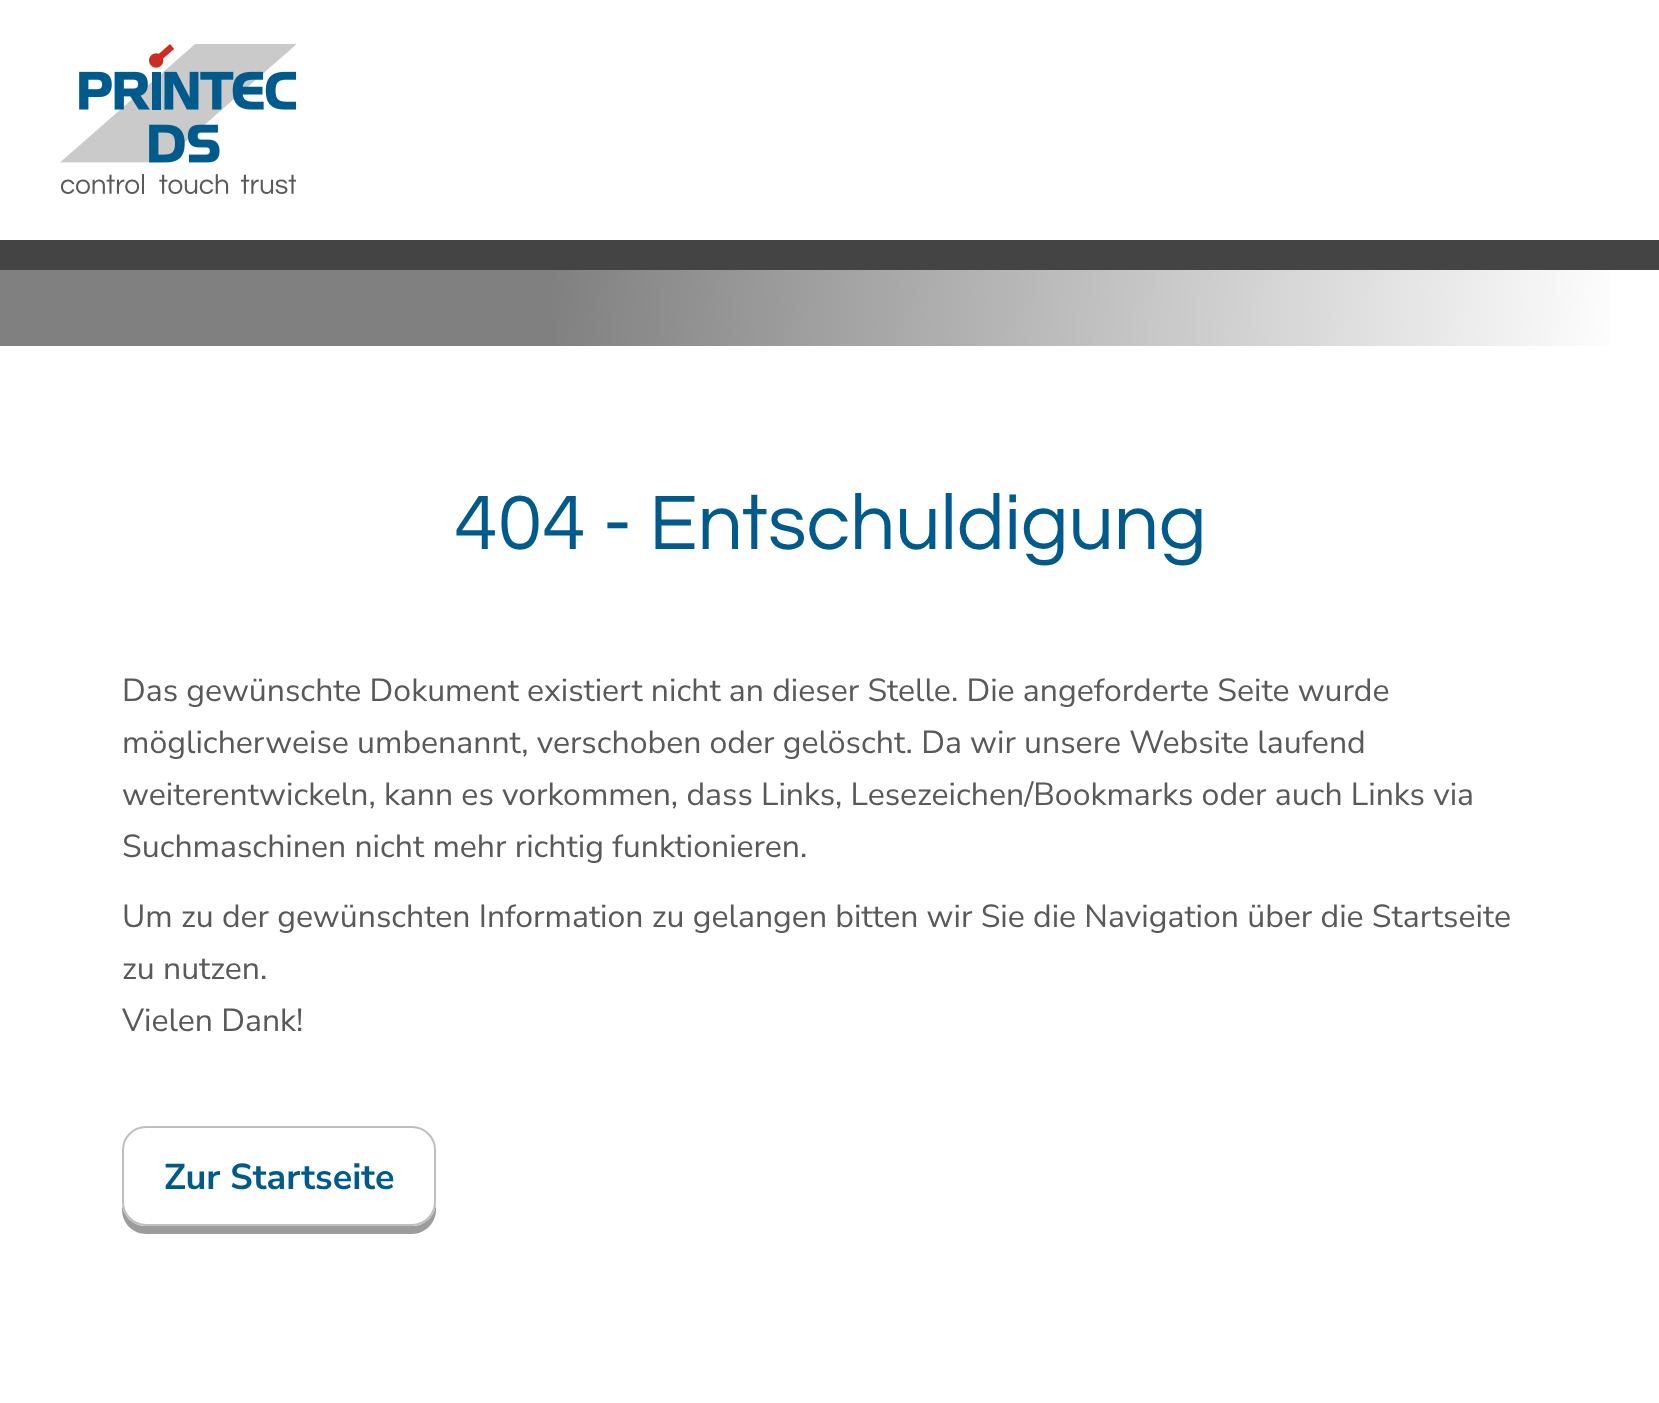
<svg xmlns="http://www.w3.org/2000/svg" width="1659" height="1403">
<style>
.a{font:80px Questrial;fill:#005b8c}
.b{font:200 32px Nunito Sans;fill:#595959}
.c{font:200 36px 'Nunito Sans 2';fill:#005b8c}
</style>
<defs>
<linearGradient id="g1" gradientUnits="userSpaceOnUse" x1="0.3" y1="265" x2="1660" y2="351"><stop offset="0.33" stop-color="#808080"/><stop offset="0.98" stop-color="#fff"/></linearGradient>
</defs>
<rect width="100%" height="100%" fill="#fff"/>
<path fill="#444" d="M0 240h1659v30H0z"/>
<image href="1.png" x="60" y="44" width="236" height="150"/>
<path fill="url(#g1)" d="M0 270h1610v76H0z"/>
<path fill="#9c9c9c" d="M122 1202v8c0 13 11 24 24 24h266c13 0 24-11 24-24v-8c0 13-11 24-24 24h-266c-13 0-24-11-24-24z"/>
<rect fill="#fff" x="122" y="1126" width="314" height="100" rx="24"/>
<rect fill="none" stroke="#bebebe" stroke-width="2" x="123" y="1127" width="312" height="98" rx="23"/>
<text class="a" x="454" y="549">404 - Entschuldigung</text>
<text class="b" x="122" y="701">Das gewünschte Dokument existiert nicht an dieser Stelle. Die angeforderte Seite wurde</text>
<text class="b" x="122" y="753">möglicherweise umbenannt, verschoben oder gelöscht. Da wir unsere Website laufend</text>
<text class="b" x="122" y="805">weiterentwickeln, kann es vorkommen, dass Links, Lesezeichen/Bookmarks oder auch Links via</text>
<text class="b" x="122" y="857">Suchmaschinen nicht mehr richtig funktionieren.</text>
<text class="b" x="122" y="927">Um zu der gewünschten Information zu gelangen bitten wir Sie die Navigation über die Startseite</text>
<text class="b" x="122" y="979">zu nutzen.</text>
<text class="b" x="122" y="1031">Vielen Dank!</text>
<text class="c" x="164" y="1189">Zur Startseite</text>
</svg>
